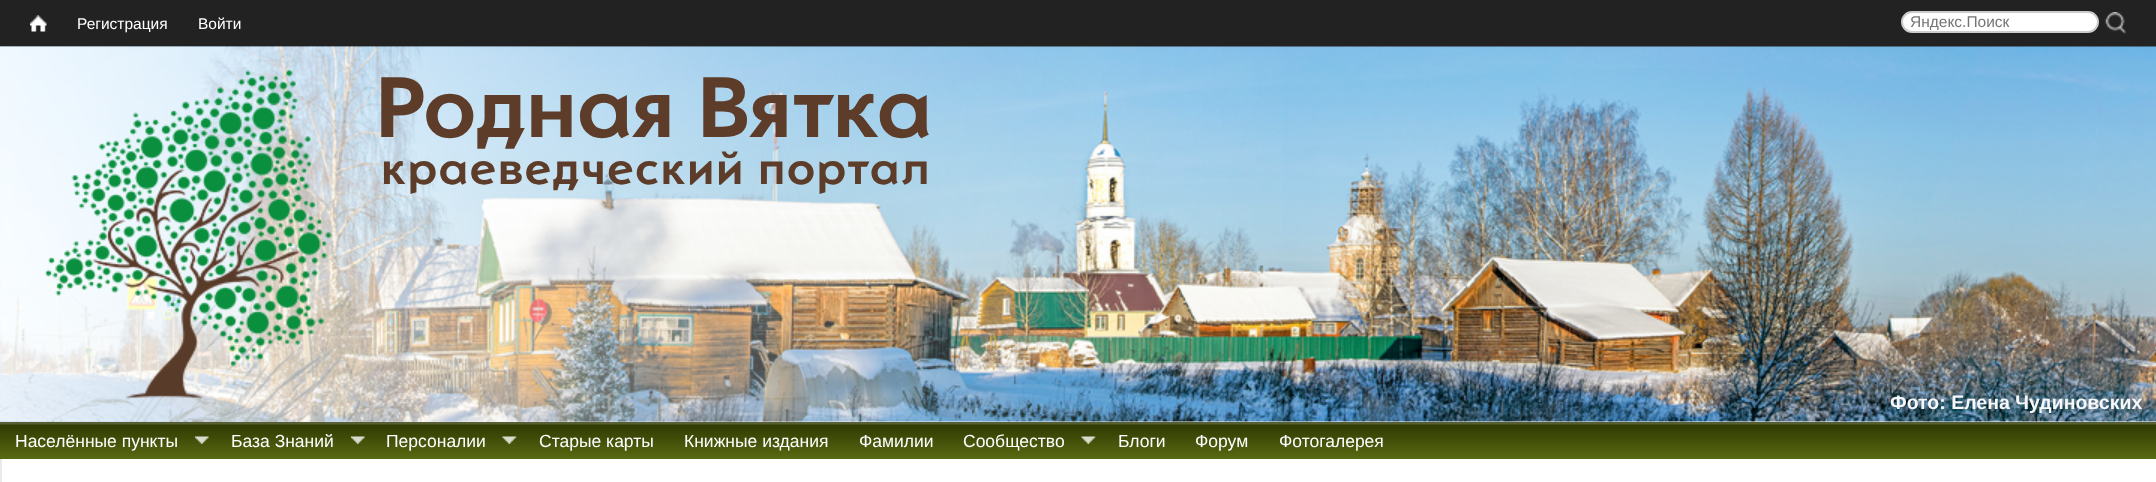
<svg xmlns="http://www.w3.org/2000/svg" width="2156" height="482">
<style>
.a{font:15.5px Liberation Sans;fill:#fff}
.b{font:15.5px Liberation Sans;fill:#757575}
.c{font:bold 90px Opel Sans;fill:#5d3d2a}
.d{font:bold 48px Opel Sans;letter-spacing:1.5px;fill:#5d3d2a}
.e{font:bold 19.5px Liberation Sans;fill:#f6f7f8}
.f{font:17.5px Liberation Sans;fill:#fff}
</style>
<defs>
<clipPath id="clip1"><path d="M1910 14h180v16H1910z"/></clipPath>
</defs>
<rect width="100%" height="100%" fill="#fff"/>
<path fill="#222" d="M0 0h2156v47H0z"/>
<image href="1.png" x="30" y="15" width="17" height="17"/>
<rect fill="#fff" stroke="#ccc" stroke-width="2" x="1902" y="12" width="196" height="20" rx="10"/>
<image href="2.png" x="2104" y="12" width="22" height="22"/>
<image href="3.png" x="0" y="46" width="2156" height="376"/>
<image href="4.png" x="0" y="46" width="1283" height="376"/>
<image href="5.png" x="45" y="70" width="287" height="330"/>
<image href="6.png" x="0" y="422" width="2156" height="37"/>
<image href="7.png" x="195" y="436" width="14" height="8"/>
<image href="8.png" x="351" y="436" width="14" height="8"/>
<image href="9.png" x="502" y="436" width="15" height="8"/>
<image href="9.png" x="1081" y="436" width="15" height="8"/>
<path fill="#e9e9e9" d="M0 459h2v23H0z"/>
<text class="a" x="77" y="29">Регистрация</text>
<text class="a" x="198" y="29">Войти</text>
<g clip-path="url(#clip1)">
<text class="b" x="1910" y="27">Яндекс.Поиск</text>
</g>
<text class="c" x="375" y="137">Родная Вятка</text>
<text class="d" x="381" y="184">краеведческий портал</text>
<text class="e" x="1890" y="409">Фото: Елена Чудиновских</text>
<text class="f" x="15" y="447">Населённые пункты</text>
<text class="f" x="231" y="447">База Знаний</text>
<text class="f" x="386" y="447">Персоналии</text>
<text class="f" x="539" y="447">Старые карты</text>
<text class="f" x="684" y="447">Книжные издания</text>
<text class="f" x="859" y="447">Фамилии</text>
<text class="f" x="963" y="447">Сообщество</text>
<text class="f" x="1118" y="447">Блоги</text>
<text class="f" x="1195" y="447">Форум</text>
<text class="f" x="1279" y="447">Фотогалерея</text>
</svg>
